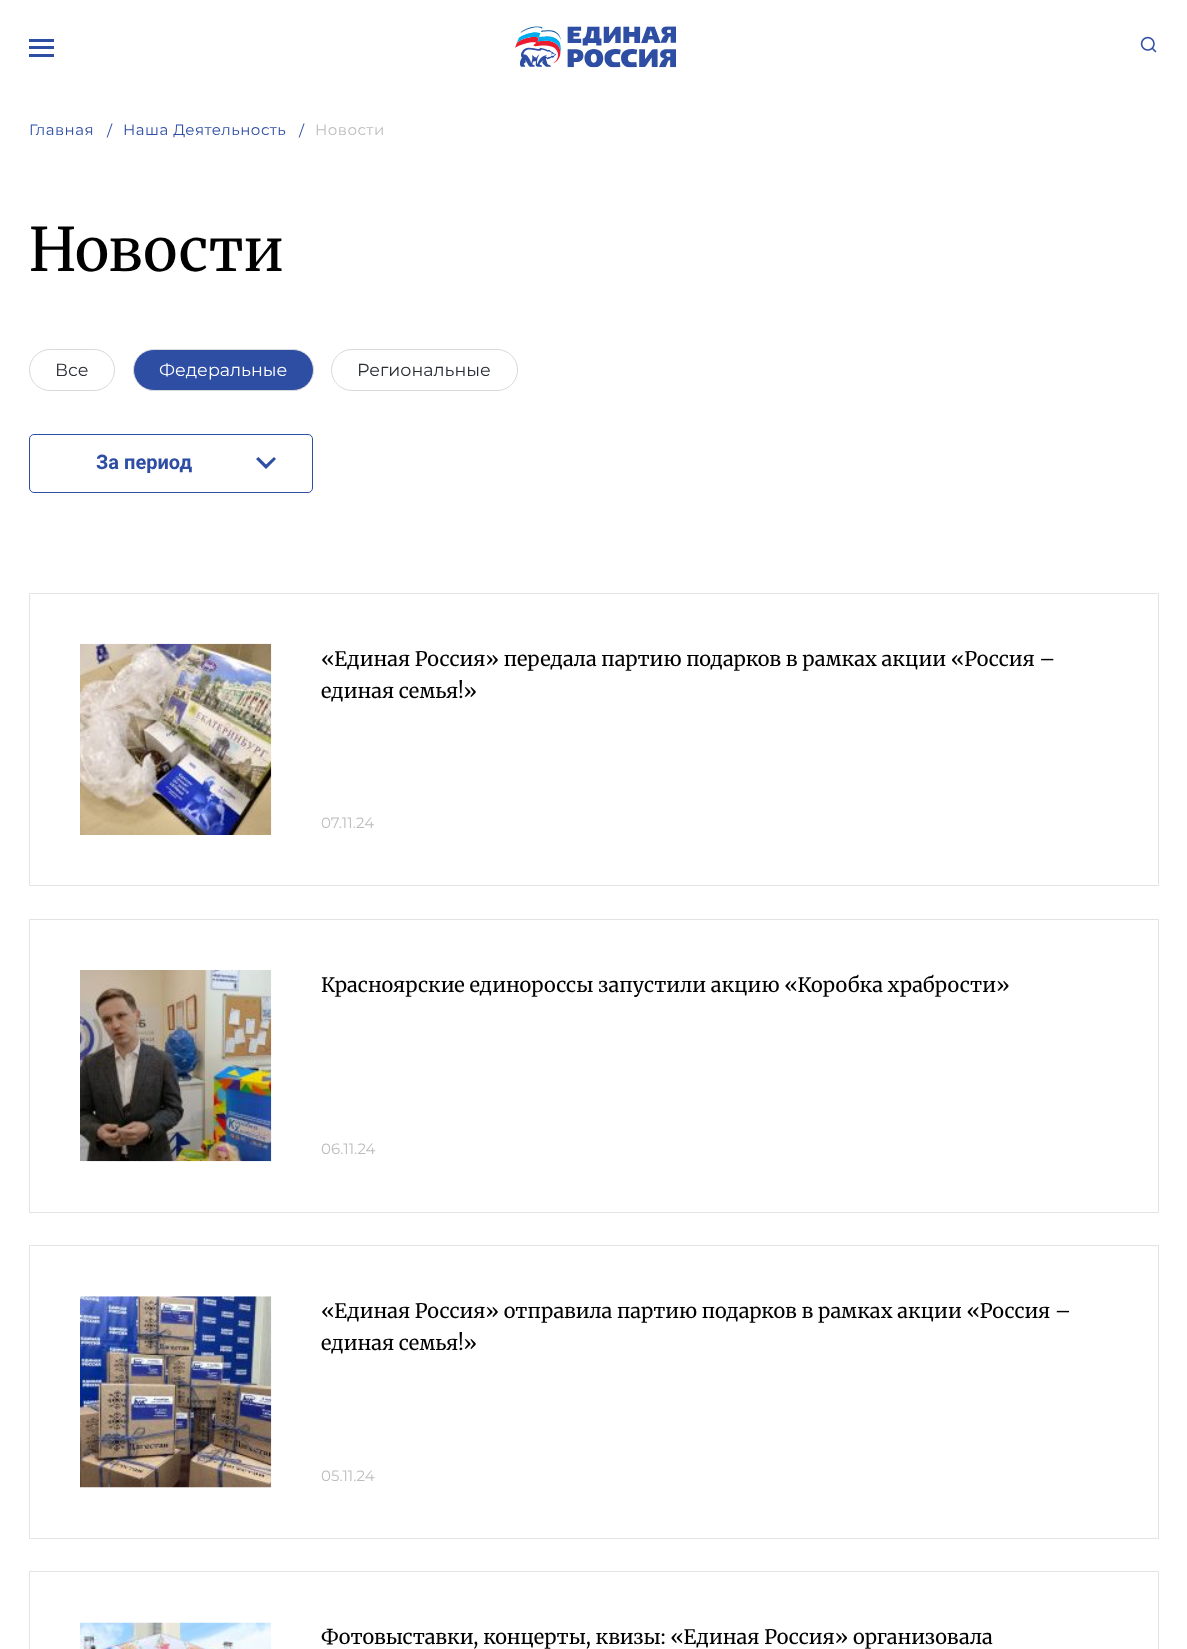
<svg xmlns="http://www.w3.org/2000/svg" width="1187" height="1649">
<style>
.a{font:15px Montserrat;letter-spacing:0.5px;fill:#2e4ea4}
.b{font:15px Montserrat;letter-spacing:0.5px;fill:#bdbdbd}
.c{font:60px Merriweather;fill:#000}
.d{font:17.5px Montserrat;fill:#2a2c34}
.e{font:17.5px Montserrat;fill:#fff}
.f{font:bold 20px Roboto;fill:#2e4ea4}
.g{font:20px 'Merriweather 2';fill:#000}
.h{font:15px Montserrat;fill:#bdbdbd}
</style>
<rect width="100%" height="100%" fill="#fff"/>
<path fill="#2e4ea4" d="M29 39h25v3H29z"/>
<path fill="#2e4ea4" d="M29 46h25v3H29z"/>
<path fill="#2e4ea4" d="M29 54h25v3H29z"/>
<image href="1.png" x="515" y="26" width="161" height="42"/>
<image href="2.png" x="1140" y="36" width="17" height="17"/>
<rect fill="none" stroke="#dadada" x="29.5" y="349.5" width="85" height="41" rx="20.5"/>
<rect fill="#2e4ea4" stroke="#dadada" x="133.5" y="349.5" width="180" height="41" rx="20.5"/>
<rect fill="none" stroke="#dadada" x="331.5" y="349.5" width="186" height="41" rx="20.5"/>
<rect fill="none" stroke="#2e4ea4" x="29.5" y="434.5" width="283" height="58" rx="4.5"/>
<path fill="#2e4ea4" d="M274 457l-8 7.5l-7.5-7.5l-2.5 2l10 10l10-10z"/>
<path fill="none" stroke="#e3e3e3" d="M29.5 593.5h1129v292H29.5z"/>
<image href="3.png" x="80" y="643" width="192" height="192"/>
<path fill="none" stroke="#e3e3e3" d="M29.5 919.5h1129v293H29.5z"/>
<image href="4.png" x="80" y="970" width="192" height="192"/>
<path fill="none" stroke="#e3e3e3" d="M29.5 1245.5h1129v293H29.5z"/>
<image href="5.png" x="80" y="1296" width="192" height="192"/>
<path fill="none" stroke="#e3e3e3" d="M29.5 1571.5h1129v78H29.5z"/>
<image href="6.png" x="80" y="1622" width="191" height="27"/>
<text class="a" x="29" y="135">Главная</text>
<text class="a" x="107" y="136">/</text>
<text class="a" x="123" y="135">Наша Деятельность</text>
<text class="a" x="299" y="136">/</text>
<text class="b" x="315" y="135">Новости</text>
<text class="c" x="29" y="271">Новости</text>
<text class="d" x="55" y="376">Все</text>
<text class="e" x="159" y="376">Федеральные</text>
<text class="d" x="357" y="376">Региональные</text>
<text class="f" x="96" y="469">За период</text>
<text class="g" x="321" y="666">«Единая Россия» передала партию подарков в рамках акции «Россия –</text>
<text class="g" x="321" y="698">единая семья!»</text>
<text class="h" x="321" y="828">07.11.24</text>
<text class="g" x="321" y="992">Красноярские единороссы запустили акцию «Коробка храбрости»</text>
<text class="h" x="321" y="1154">06.11.24</text>
<text class="g" x="321" y="1318">«Единая Россия» отправила партию подарков в рамках акции «Россия –</text>
<text class="g" x="321" y="1350">единая семья!»</text>
<text class="h" x="321" y="1481">05.11.24</text>
<text class="g" x="321" y="1644">Фотовыставки, концерты, квизы: «Единая Россия» организовала</text>
</svg>
